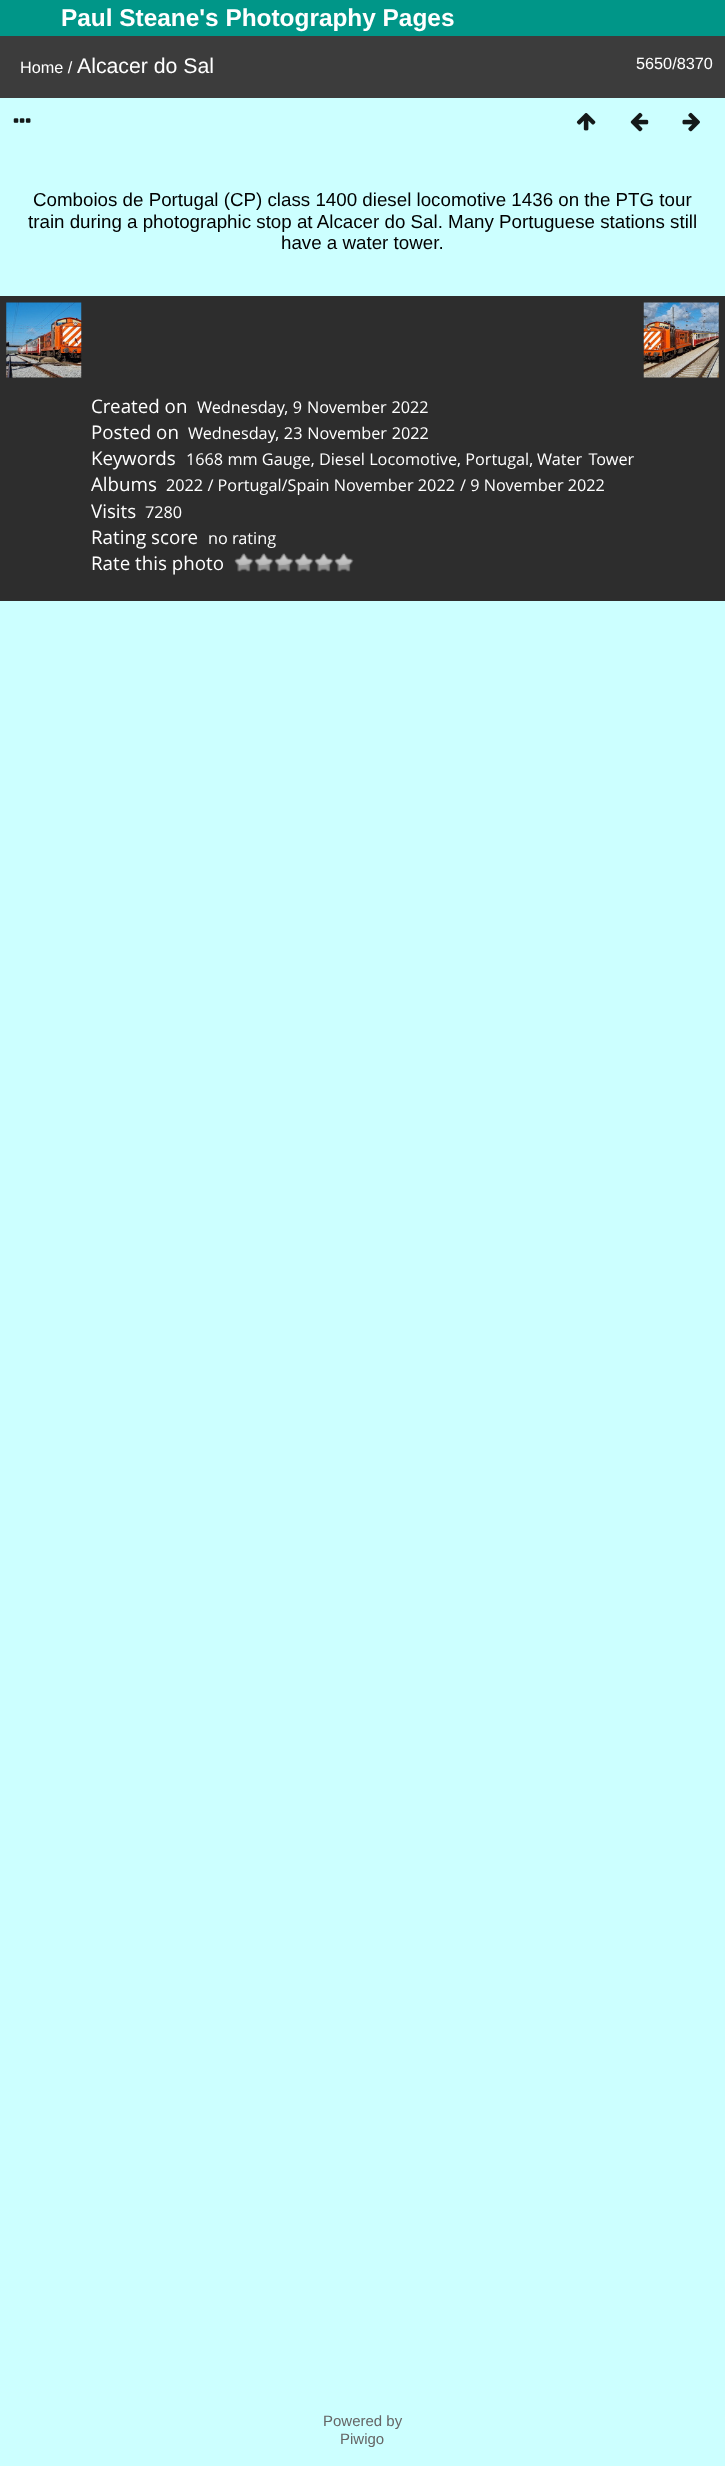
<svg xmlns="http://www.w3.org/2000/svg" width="725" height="2466">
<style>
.a{font:bold 24.4px Liberation Sans;fill:#fff}
.b{font:16.25px Liberation Sans;fill:#fff}
.c{font:21.25px Liberation Sans;fill:#fff}
.d{font:18.75px Liberation Sans;fill:#000}
.e{font:18.75px Open Sans;fill:#fff}
.f{font:16.25px Open Sans;fill:#fff}
.g{font:15px Liberation Sans;fill:#666}
</style>
<rect width="100%" height="100%" fill="#cff"/>
<path fill="#009688" d="M0 0h725v36H0z"/>
<path fill="#3c3c3c" d="M0 36h725v62H0z"/>
<image href="1.png" x="13" y="118" width="18" height="5"/>
<image href="2.png" x="576" y="113" width="20" height="18"/>
<image href="3.png" x="630" y="112" width="19" height="20"/>
<image href="4.png" x="682" y="112" width="18" height="20"/>
<path fill="#2d2d2d" d="M0 296h725v305H0z"/>
<image href="5.png" x="6" y="302" width="76" height="76"/>
<image href="6.png" x="643" y="302" width="76" height="76"/>
<image href="7.png" x="234" y="553" width="20" height="19"/>
<image href="7.png" x="254" y="553" width="20" height="19"/>
<image href="8.png" x="274" y="553" width="20" height="19"/>
<image href="7.png" x="294" y="553" width="20" height="19"/>
<image href="7.png" x="314" y="553" width="20" height="19"/>
<image href="7.png" x="334" y="553" width="20" height="19"/>
<text class="a" x="61" y="26">Paul Steane's Photography Pages</text>
<text class="b" x="20" y="73">Home /</text>
<text class="c" x="77" y="73">Alcacer do Sal</text>
<text class="b" x="636" y="69">5650/8370</text>
<text class="d" x="33" y="206">Comboios de Portugal (CP) class 1400 diesel locomotive 1436 on the PTG tour</text>
<text class="d" x="28" y="228">train during a photographic stop at Alcacer do Sal. Many Portuguese stations still</text>
<text class="d" x="281" y="249">have a water tower.</text>
<text class="e" x="91" y="413">Created on</text>
<text class="f" x="197" y="413" word-spacing="0.5">Wednesday, 9 November 2022</text>
<text class="e" x="91" y="439">Posted on</text>
<text class="f" x="188" y="439" word-spacing="0.5">Wednesday, 23 November 2022</text>
<text class="e" x="91" y="465">Keywords</text>
<text class="f" x="186" y="465">1668 mm Gauge, Diesel Locomotive, Portugal,</text>
<text class="f" x="537" y="465" word-spacing="2">Water Tower</text>
<text class="e" x="91" y="491">Albums</text>
<text class="f" x="166" y="491">2022 / Portugal/Spain November 2022</text>
<text class="f" x="460" y="491">/ 9 November 2022</text>
<text class="e" x="91" y="518">Visits</text>
<text class="f" x="145" y="518">7280</text>
<text class="e" x="91" y="544">Rating score</text>
<text class="f" x="208" y="544">no rating</text>
<text class="e" x="91" y="570">Rate this photo</text>
<text class="g" x="323" y="2426">Powered by</text>
<text class="g" x="340" y="2444">Piwigo</text>
</svg>
